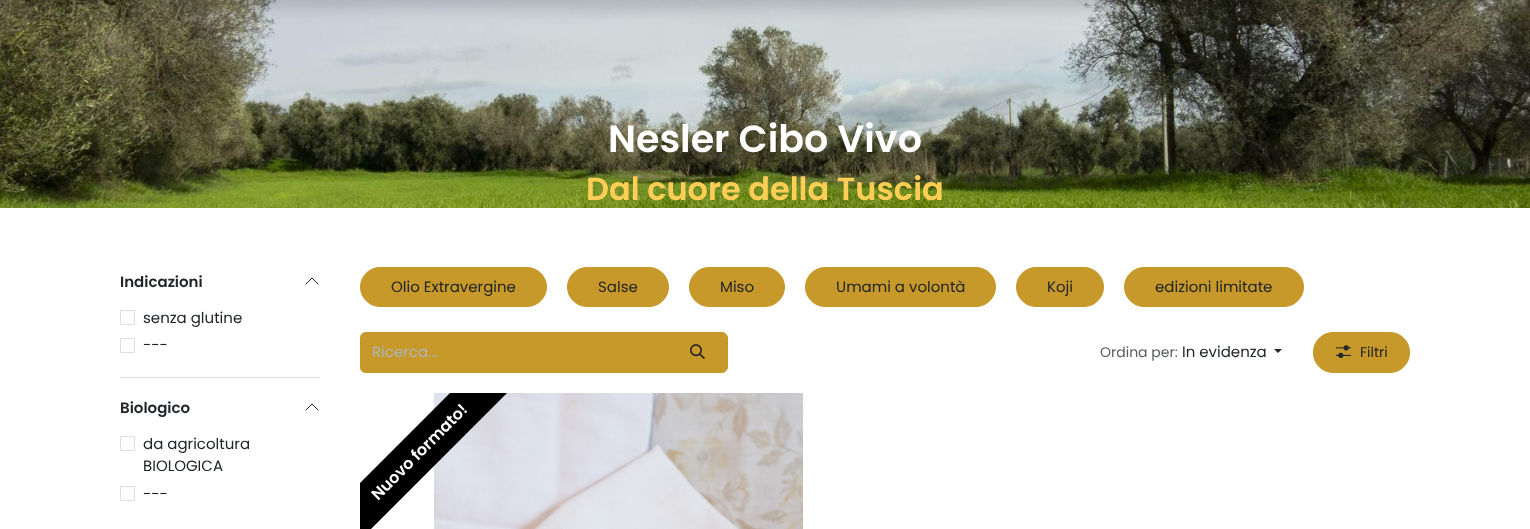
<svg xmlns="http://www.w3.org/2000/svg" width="1530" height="529">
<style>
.a{font:600 38px Poppins;fill:#fff}
.b{font:600 32px Poppins;fill:#ffce57}
.c{font:600 15px Poppins;fill:#212529}
.d{font:15px Poppins;fill:#212529}
.e{font:15px Poppins;fill:#adb5bd}
.f{font:14px Poppins;fill:#595c5f}
.g{font:14px Poppins;fill:#212529}
.h{font:600 16px Poppins;fill:#fff}
</style>
<defs>
<clipPath id="clip1"><path d="M360 393h517v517H360z"/></clipPath>
</defs>
<rect width="100%" height="100%" fill="#fff"/>
<image href="1.png" x="0" y="0" width="1530" height="208"/>
<path fill="#00000026" filter="blur(8px)" d="M0 -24h1530v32H0z"/>
<path fill="#dededf" d="M120 377h200v1H120z"/>
<path fill="none" stroke="#212529" stroke-linecap="round" stroke-linejoin="round" d="M318 284l-6-6l-6 6"/>
<path fill="none" stroke="#dededf" d="M120.5 310.5h14v14H120.5z"/>
<path fill="none" stroke="#dededf" d="M120.5 338.5h14v14H120.5z"/>
<path fill="none" stroke="#212529" stroke-linecap="round" stroke-linejoin="round" d="M318 410l-6-6l-6 6"/>
<path fill="none" stroke="#dededf" d="M120.5 436.5h14v14H120.5z"/>
<path fill="none" stroke="#dededf" d="M120.5 486.5h14v14H120.5z"/>
<rect fill="#c7992a" stroke="#c7992a" x="360.5" y="267.5" width="186" height="39" rx="19.5"/>
<rect fill="#c7992a" stroke="#c7992a" x="567.5" y="267.5" width="101" height="39" rx="19.5"/>
<rect fill="#c7992a" stroke="#c7992a" x="689.5" y="267.5" width="95" height="39" rx="19.5"/>
<rect fill="#c7992a" stroke="#c7992a" x="805.5" y="267.5" width="190" height="39" rx="19.5"/>
<rect fill="#c7992a" stroke="#c7992a" x="1016.5" y="267.5" width="87" height="39" rx="19.5"/>
<rect fill="#c7992a" stroke="#c7992a" x="1124.5" y="267.5" width="179" height="39" rx="19.5"/>
<path fill="#c7992a" d="M366 332h303v41h-303c-3.5 0-6-2.5-6-6v-29c0-3.5 2.5-6 6-6z"/>
<path fill="#c7992a" stroke="#c7992a" d="M668.5 332.5h53.5c3 0 5.5 2.5 5.5 5.5v29c0 3-2.5 5.5-5.5 5.5h-53.5z"/>
<image href="2.png" x="690" y="344" width="15" height="15"/>
<path fill="#212529" d="M1274 349h8l-4 4z"/>
<rect fill="#c7992a" stroke="#c7992a" x="1313.5" y="332.5" width="96" height="40" rx="19.5"/>
<image href="3.png" x="1336" y="345" width="15" height="13"/>
<image href="4.png" x="434" y="393" width="369" height="136"/>
<g clip-path="url(#clip1)">
<path fill="#000" d="M289 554l232-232l29 28l-232 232z"/>
</g>
<text class="a" x="608" y="152">Nesler Cibo Vivo</text>
<text class="b" x="586" y="200">Dal cuore della Tuscia</text>
<text class="c" x="120" y="287">Indicazioni</text>
<text class="d" x="143" y="323">senza glutine</text>
<text class="d" x="143" y="350">---</text>
<text class="c" x="120" y="413">Biologico</text>
<text class="d" x="143" y="449">da agricoltura</text>
<text class="d" x="143" y="471">BIOLOGICA</text>
<text class="d" x="143" y="499">---</text>
<text class="d" x="391" y="292">Olio Extravergine</text>
<text class="d" x="598" y="292">Salse</text>
<text class="d" x="720" y="292">Miso</text>
<text class="d" x="836" y="292">Umami a volontà</text>
<text class="d" x="1047" y="292">Koji</text>
<text class="d" x="1155" y="292">edizioni limitate</text>
<text class="e" x="372" y="357">Ricerca...</text>
<text class="f" x="1100" y="357">Ordina per:</text>
<text class="d" x="1182" y="357">In evidenza</text>
<text class="g" x="1360" y="357">Filtri</text>
<text class="h" x="378" y="501" transform="rotate(-45 378 501)">Nuovo formato!</text>
</svg>
